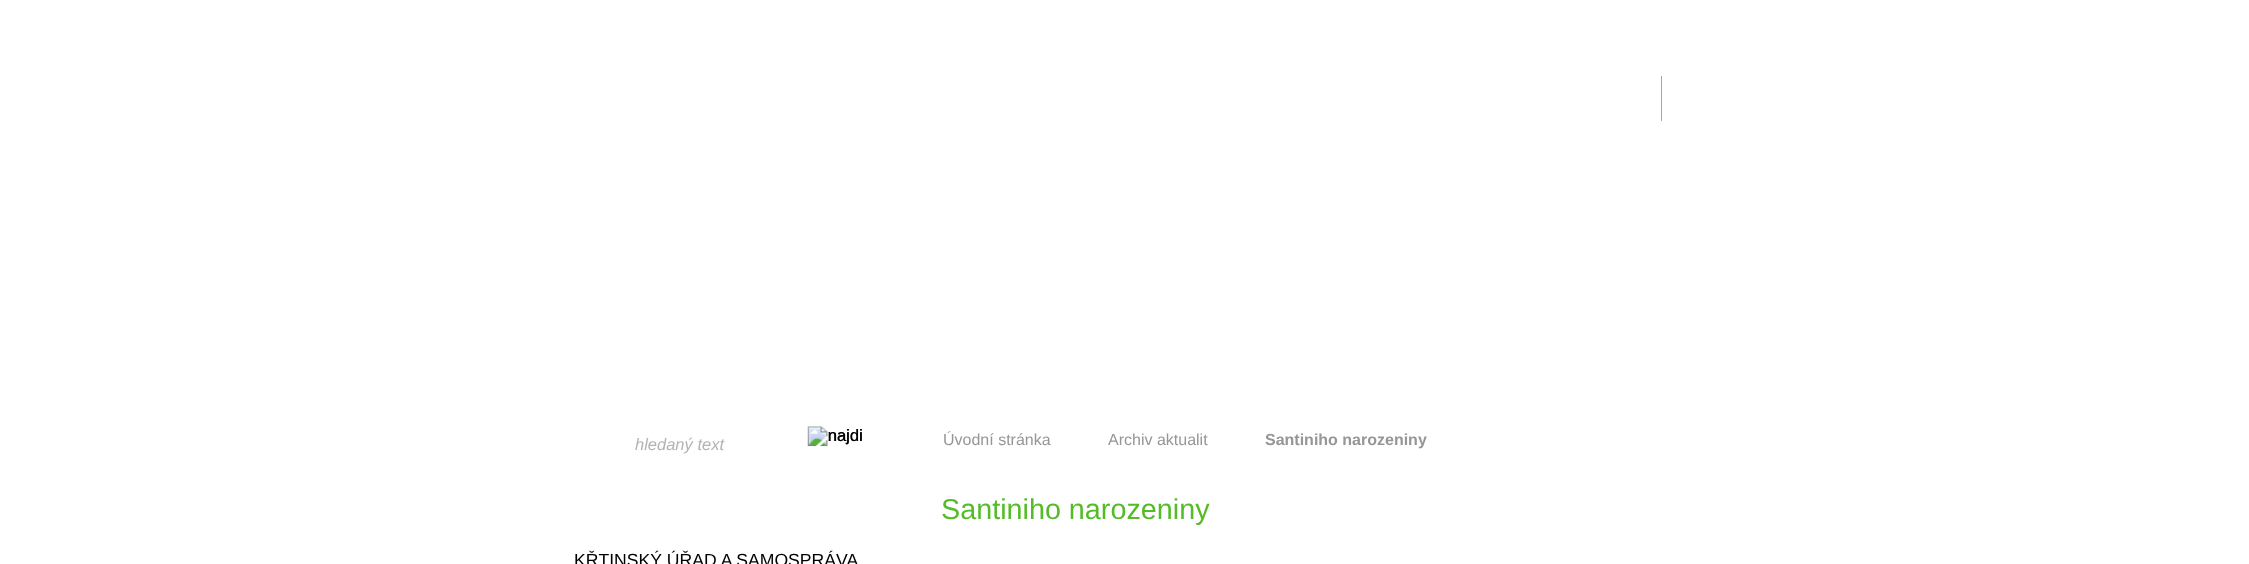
<svg xmlns="http://www.w3.org/2000/svg" width="2249" height="564">
<style>
.a{font:italic 16.5px Liberation Sans;fill:#b3b3b3}
.b{font:16.5px Liberation Sans;fill:#000}
.c{font:17.6px Liberation Sans;fill:#000}
.d{font:16px Liberation Sans;fill:#969696}
.e{font:bold 16px Liberation Sans;fill:#969696}
.f{font:28.75px Liberation Sans;fill:#53bc26}
</style>
<rect width="100%" height="100%" fill="#fff"/>
<path fill="#a5a5a5" d="M1661 76h1v45H1661z"/>
<image href="1.png" x="807" y="426" width="55" height="21"/>
<text class="a" x="635" y="450">hledaný text</text>
<text class="b" x="828" y="441">najdi</text>
<text class="c" x="574" y="566">KŘTINSKÝ ÚŘAD A SAMOSPRÁVA</text>
<text class="d" x="943" y="445">Úvodní stránka</text>
<text class="d" x="1108" y="445">Archiv aktualit</text>
<text class="e" x="1265" y="445">Santiniho narozeniny</text>
<text class="f" x="941" y="519">Santiniho narozeniny</text>
</svg>
